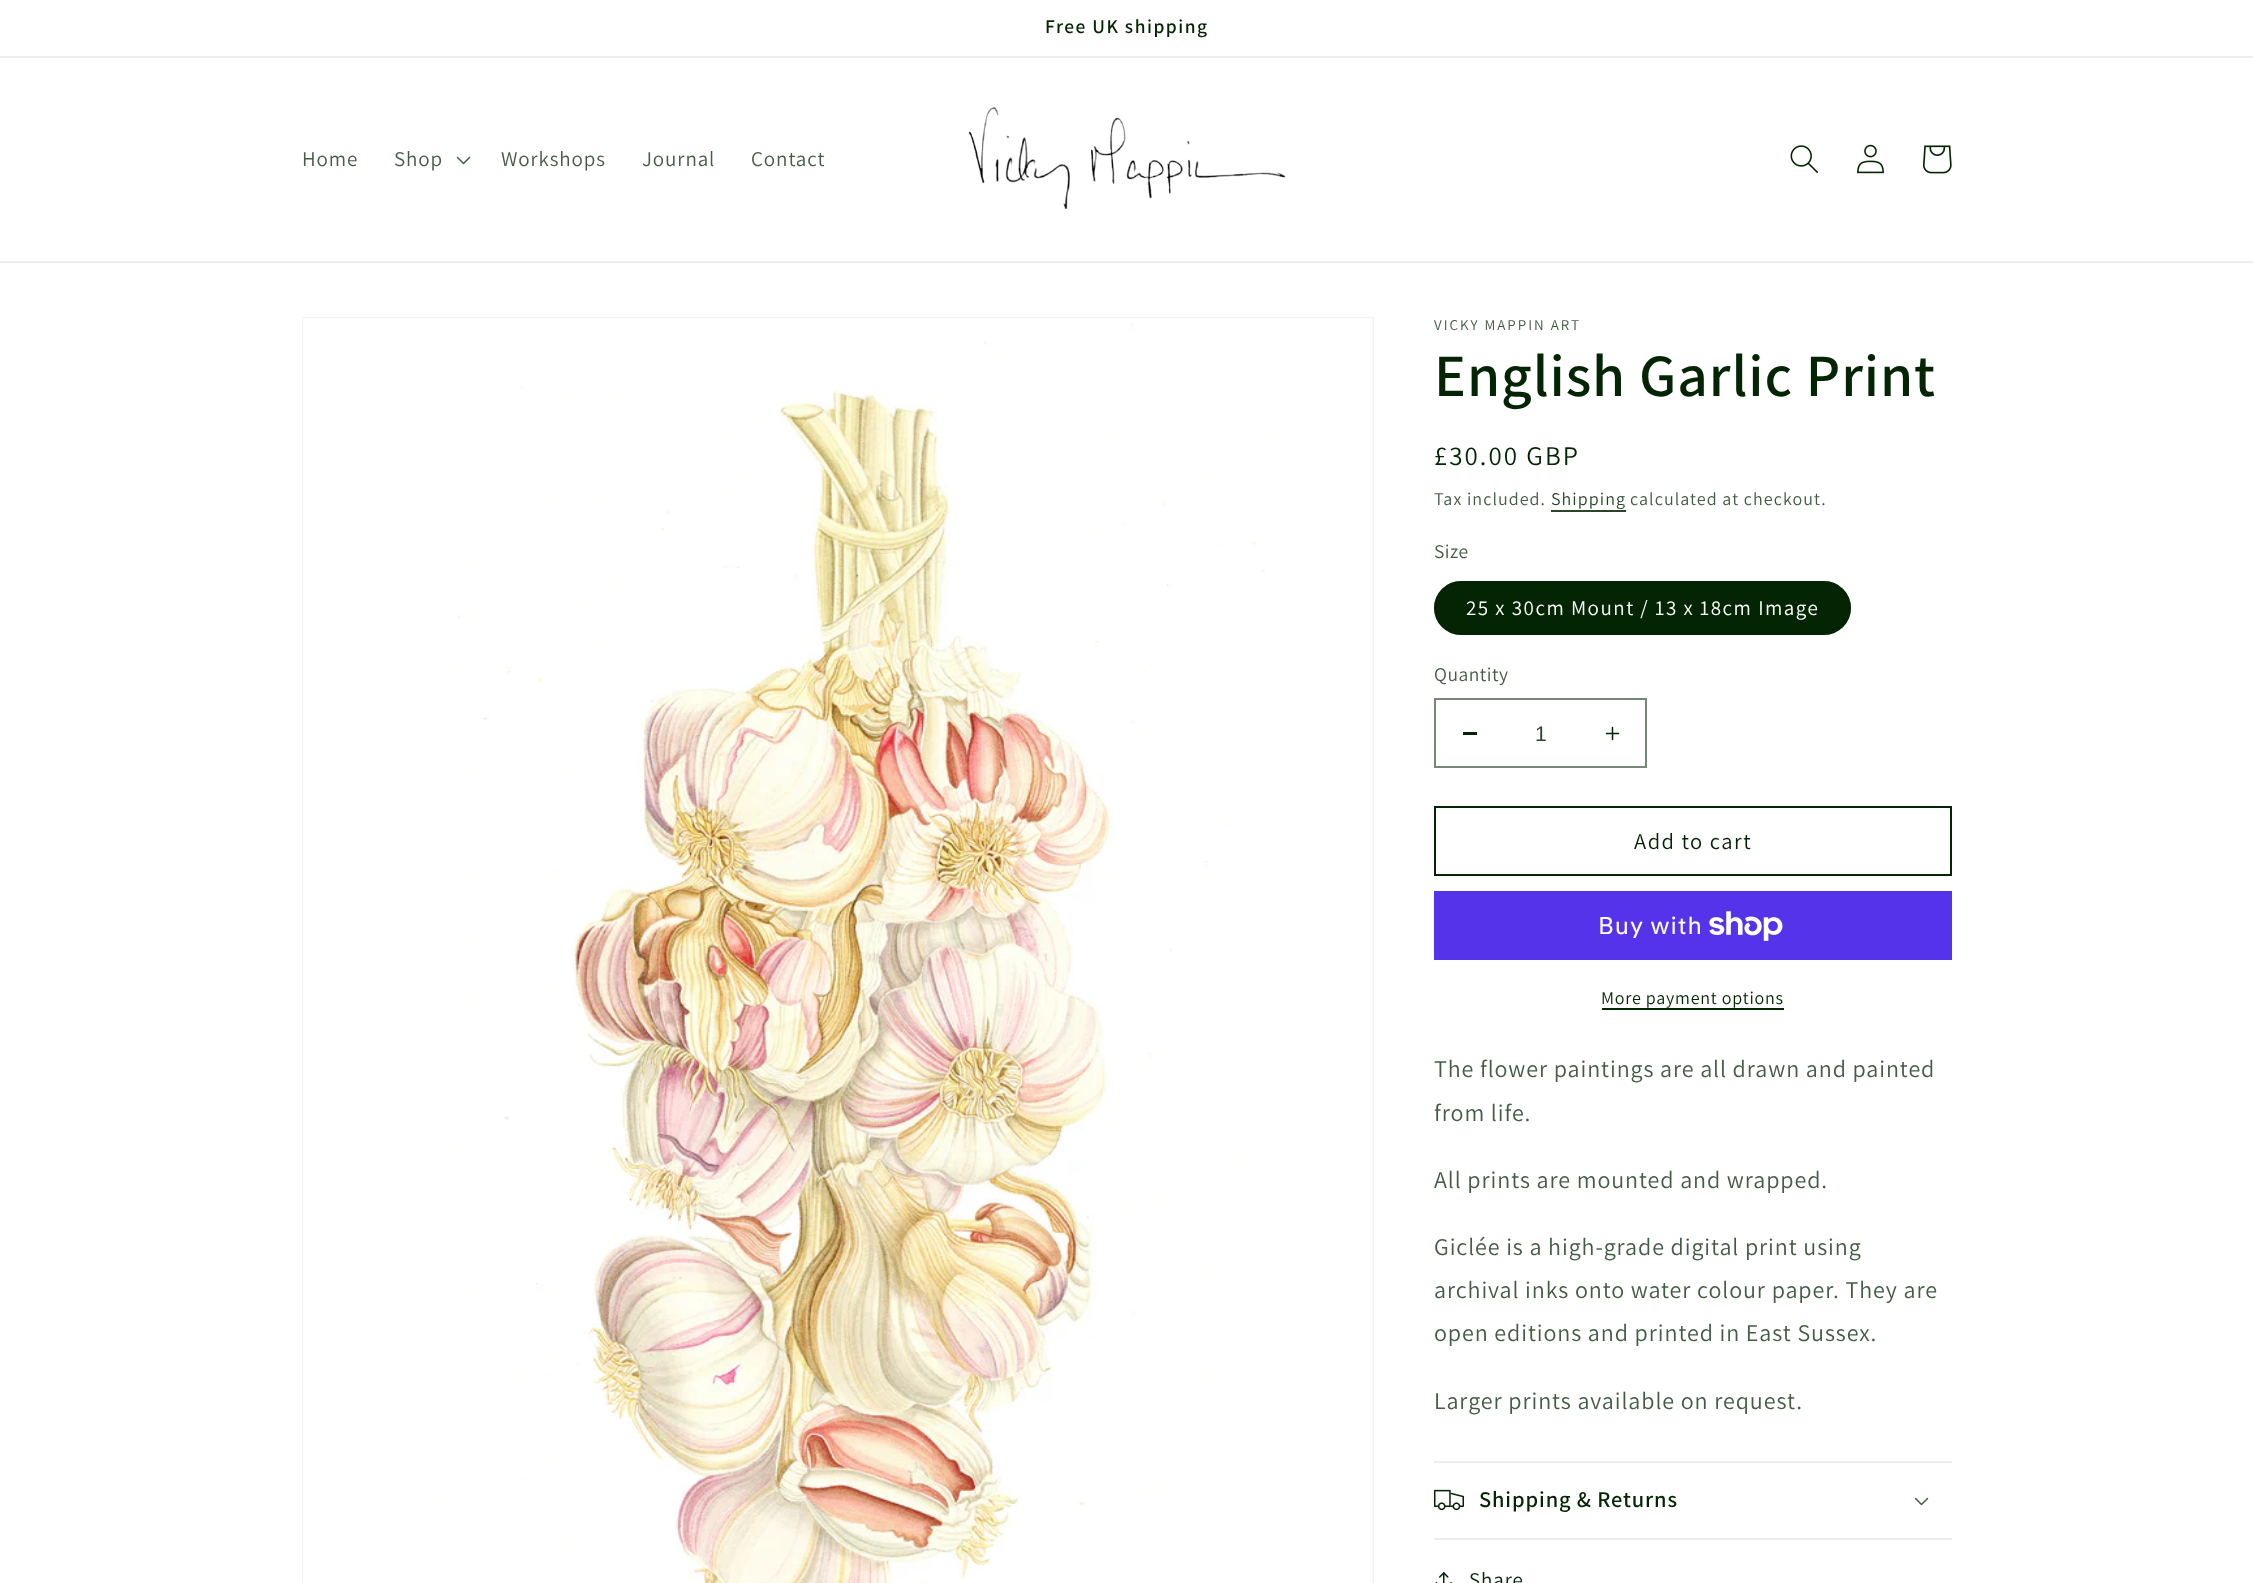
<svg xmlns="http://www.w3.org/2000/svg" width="2253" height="1583">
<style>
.a{font:600 19.5px Assistant;letter-spacing:1.5px;fill:#042504}
.b{font:21px Assistant;letter-spacing:0.9px;fill:#435c43}
.c{font:15px Assistant;letter-spacing:2px;fill:#435c43}
.d{font:600 60px Assistant;letter-spacing:0.9px;fill:#042504}
.e{font:27px Assistant;letter-spacing:2px;fill:#042504}
.f{font:18px Assistant;letter-spacing:1.05px;fill:#435c43}
.g{font:18px Assistant;letter-spacing:1.05px;fill:#2a462a}
.h{font:19.5px Assistant;letter-spacing:0.5px;fill:#435c43}
.i{font:21px Assistant;letter-spacing:1.5px;fill:#fff}
.j{font:21px Liberation Sans;fill:#2a462a}
.k{font:22.5px Assistant;letter-spacing:1.5px;fill:#042504}
.l{font:24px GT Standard;letter-spacing:0.9px;fill:#fff}
.m{font:18px Assistant;letter-spacing:0.75px;fill:#042504}
.n{font:24px Assistant;letter-spacing:0.9px;fill:#435c43}
.o{font:600 22.5px Assistant;letter-spacing:0.9px;fill:#042504}
.p{font:21px Assistant;letter-spacing:0.9px;fill:#042504}
</style>
<rect width="100%" height="100%" fill="#fff"/>
<path fill="#ebeeeb" d="M0 56h2253v2H0z"/>
<path fill="#ebeeeb" d="M0 261h2253v2H0z"/>
<image href="1.png" x="456" y="156" width="15" height="9"/>
<image href="2.png" x="968" y="107" width="318" height="103"/>
<image href="3.png" x="1790" y="145" width="28" height="28"/>
<image href="4.png" x="1857" y="144" width="27" height="30"/>
<image href="5.png" x="1923" y="145" width="29" height="29"/>
<path fill="none" stroke="#f2f4f2" stroke-width="2" d="M303 318h1070v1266H303z"/>
<image href="6.png" x="303" y="318" width="1070" height="1265"/>
<path fill="#2a462a" d="M1551 510h75v2H1551z"/>
<rect fill="#042504" x="1434" y="581" width="417" height="54" rx="27"/>
<rect fill="none" stroke="#0425048c" stroke-width="2" x="1435" y="582" width="415" height="52" rx="26"/>
<path fill="#042504" d="M1463 732h14v3H1463z"/>
<image href="7.png" x="1605" y="726" width="15" height="15"/>
<path fill="none" stroke="#758775" stroke-width="2" d="M1435 699h211v68H1435z"/>
<path fill="none" stroke="#042504" stroke-width="2" d="M1435 807h516v68H1435z"/>
<path fill="#5433eb" d="M1434 891h518v69H1434z"/>
<image href="8.png" x="1709" y="911" width="74" height="30"/>
<path fill="#042504" d="M1602 1008h182v2H1602z"/>
<path fill="#ebeeeb" d="M1434 1461h518v2H1434z"/>
<path fill="#ebeeeb" d="M1434 1538h518v2H1434z"/>
<image href="9.png" x="1434" y="1489" width="30" height="22"/>
<image href="1.png" x="1914" y="1497" width="15" height="9"/>
<image href="10.png" x="1435" y="1572" width="17" height="11"/>
<text class="a" x="1045" y="33">Free UK shipping</text>
<text class="b" x="302" y="166">Home</text>
<text class="b" x="394" y="166">Shop</text>
<text class="b" x="501" y="166">Workshops</text>
<text class="b" x="642" y="166">Journal</text>
<text class="b" x="751" y="166">Contact</text>
<text class="c" x="1434" y="330">VICKY MAPPIN ART</text>
<text class="d" x="1434" y="396">English Garlic Print</text>
<text class="e" x="1434" y="465">£30.00 GBP</text>
<text class="f" x="1434" y="505">Tax included.</text>
<text class="g" x="1551" y="505">Shipping</text>
<text class="f" x="1630" y="505">calculated at checkout.</text>
<text class="h" x="1434" y="558">Size</text>
<text class="i" x="1466" y="615">25 x 30cm Mount / 13 x 18cm Image</text>
<text class="h" x="1434" y="681">Quantity</text>
<text class="j" x="1535" y="741">1</text>
<text class="k" x="1634" y="849">Add to cart</text>
<text class="l" x="1598" y="934">Buy with</text>
<text class="m" x="1601" y="1004">More payment options</text>
<text class="n" x="1434" y="1077">The flower paintings are all drawn and painted</text>
<text class="n" x="1434" y="1121">from life.</text>
<text class="n" x="1434" y="1188">All prints are mounted and wrapped.</text>
<text class="n" x="1434" y="1255">Giclée is a high-grade digital print using</text>
<text class="n" x="1434" y="1298">archival inks onto water colour paper. They are</text>
<text class="n" x="1434" y="1341">open editions and printed in East Sussex.</text>
<text class="n" x="1434" y="1409">Larger prints available on request.</text>
<text class="o" x="1479" y="1507">Shipping &amp; Returns</text>
<text class="p" x="1469" y="1587">Share</text>
</svg>
